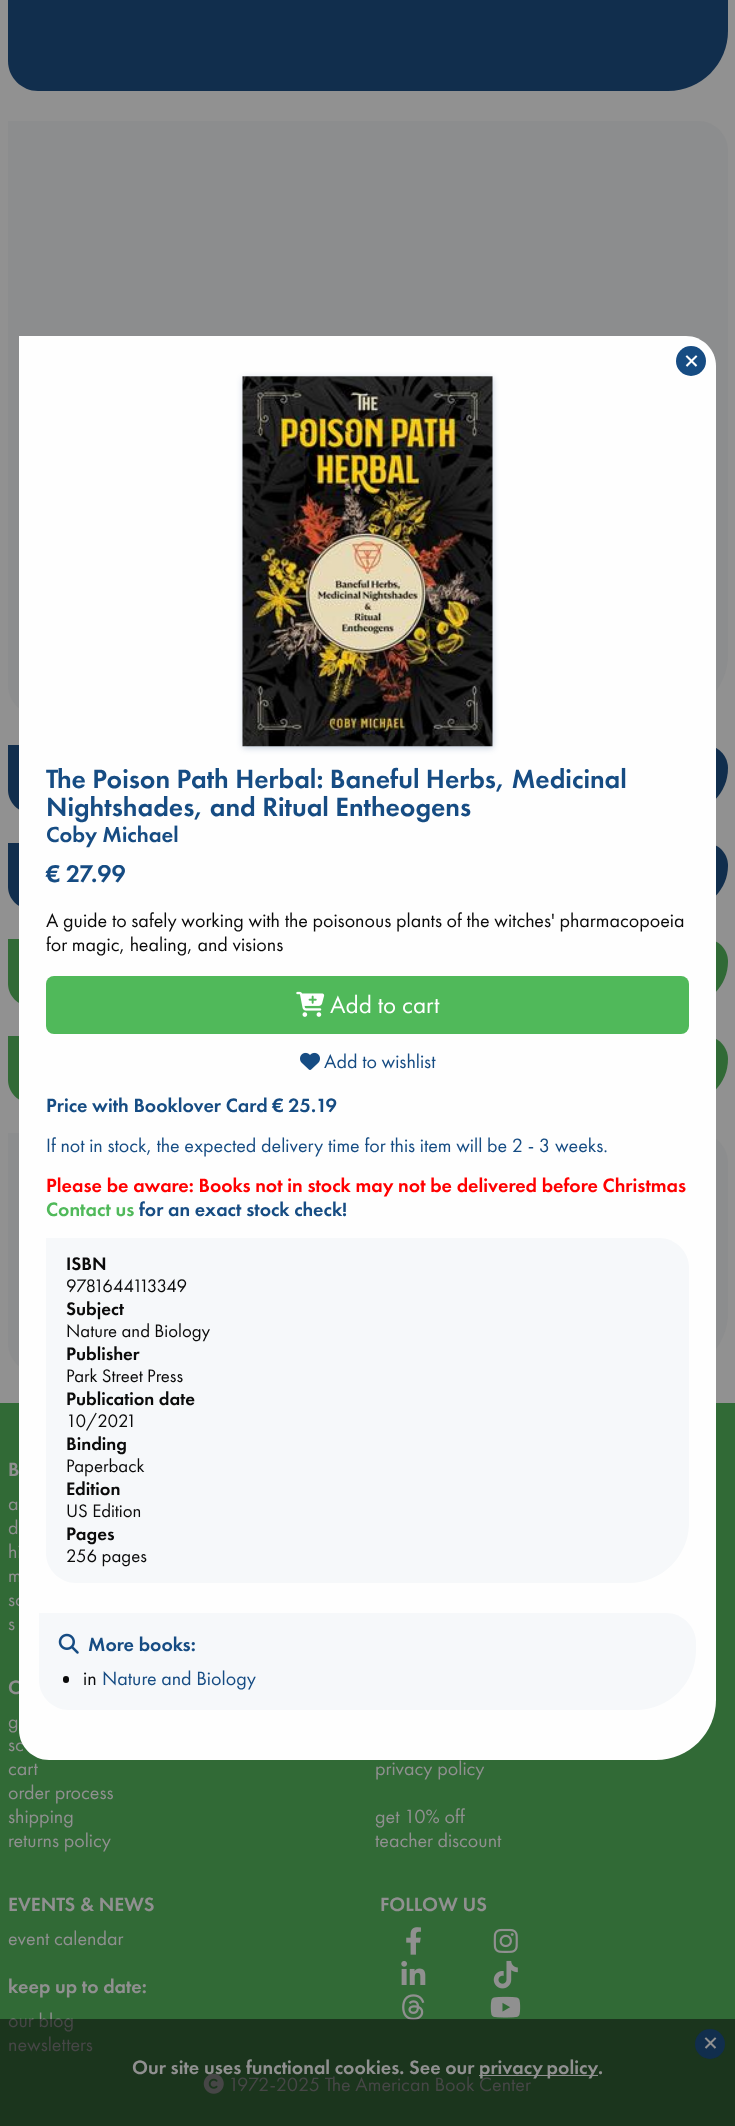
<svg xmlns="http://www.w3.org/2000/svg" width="735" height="2126">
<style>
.a{font:500 20px Futura PT;fill:#909090}
.b{font:20px Futura PT;fill:#909090}
.c{font:30px Futura PT;fill:#fff}
.d{font:20px Futura PT;fill:#164c83}
.e{font:20px Futura PT;fill:#0a0a0a}
.f{font:500 20px Futura PT;fill:#164c83}
.g{font:18.75px Futura PT;fill:#0a0a0a}
.h{font:500 18.75px Futura PT;fill:#0a0a0a}
.i{font:500 20px Futura PT;fill:#50b95a}
.j{font:500 20px Futura PT;fill:#f00}
.k{font:25px Futura PT;fill:#fff}
.l{font:500 25px Futura PT;fill:#164c83}
.m{font:500 22.5px Futura PT;fill:#164c83}
.n{font:500 27.5px Futura PT;fill:#164c83}
.o{font:30px Futura PT;fill:#909090}
</style>
<rect width="100%" height="100%" fill="#919191"/>
<path fill="#112e4d" d="M8-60h690c16.5 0 30 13.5 30 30v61c0 33-27 60-60 60h-630c-16.5 0-30-13.5-30-30z"/>
<path fill="#8c8d8e" d="M8 121h690c16.5 0 30 13.5 30 30v504c0 33-27 60-60 60h-630c-16.5 0-30-13.5-30-30z"/>
<path fill="#112e4d" d="M8 745h697c12.5 0 23 10.5 23 23c0 25-20 45-45 45h-652c-12.5 0-23-10.5-23-23z"/>
<path fill="#112e4d" d="M8 843h697.5c12.5 0 22.5 10 22.5 22.5c0 24-19.5 43.5-43.5 43.5h-654c-12.5 0-22.5-10-22.5-22.5z"/>
<path fill="#316a36" d="M8 939h697.5c12.5 0 22.5 10 22.5 22.5c0 24.5-20 44.5-44.5 44.5h-653c-12.5 0-22.5-10-22.5-22.5z"/>
<path fill="#316a36" d="M8 1036h697c12.5 0 23 10.5 23 23c0 24.5-19.5 44-44 44h-653c-12.5 0-23-10.5-23-23z"/>
<path fill="#8c8d8e" d="M8 1133h690c16.5 0 30 13.5 30 30v150c0 33-27 60-60 60h-630c-16.5 0-30-13.5-30-30z"/>
<path fill="#316a36" d="M0 1403h735v723H0z"/>
<image href="5.png" x="406" y="1927" width="15" height="28"/>
<image href="6.png" x="493" y="1928" width="25" height="25"/>
<image href="7.png" x="401" y="1960" width="25" height="25"/>
<image href="8.png" x="493" y="1960" width="25" height="29"/>
<image href="9.png" x="402" y="1994" width="23" height="27"/>
<image href="10.png" x="490" y="1996" width="31" height="22"/>
<image href="11.png" x="203" y="2073" width="21" height="21"/>
<text class="a" x="8" y="1476">B</text>
<text class="b" x="8" y="1510">a</text>
<text class="b" x="8" y="1534">d</text>
<text class="b" x="8" y="1558">hi</text>
<text class="b" x="8" y="1582">m</text>
<text class="b" x="8" y="1606">sc</text>
<text class="b" x="8" y="1630">s</text>
<text class="a" x="8" y="1694">O</text>
<text class="b" x="8" y="1728">g</text>
<text class="b" x="8" y="1751">sc</text>
<path fill="#fefefe" d="M19 336h667c16.5 0 30 13.5 30 30v1334c0 33-27 60-60 60h-607c-16.5 0-30-13.5-30-30z"/>
<circle fill="#164c83" cx="691" cy="361" r="15"/>
<text class="c" x="684" y="371">×</text>
<path fill="#f6f8fa" d="M39 1613h627c16.5 0 30 13.5 30 30v7c0 33-27 60-60 60h-567c-16.5 0-30-13.5-30-30z"/>
<text class="d" x="102" y="1685">Nature and Biology</text>
<text class="e" x="83" y="1685">in</text>
<rect fill="#0a0a0a" x="63" y="1676" width="6" height="7" rx="3"/>
<text class="f" x="88" y="1651">More books:</text>
<image href="4.png" x="58" y="1633" width="21" height="21"/>
<path fill="#f6f8fa" d="M46 1238h613c16.5 0 30 13.5 30 30v255c0 33-27 60-60 60h-553c-16.5 0-30-13.5-30-30z"/>
<text class="g" x="66" y="1562">256 pages</text>
<text class="h" x="66" y="1540">Pages</text>
<text class="g" x="66" y="1517">US Edition</text>
<text class="h" x="66" y="1495">Edition</text>
<text class="g" x="66" y="1472">Paperback</text>
<text class="h" x="66" y="1450">Binding</text>
<text class="g" x="66" y="1427">10/2021</text>
<text class="h" x="66" y="1405">Publication date</text>
<text class="g" x="66" y="1382">Park Street Press</text>
<text class="h" x="66" y="1360">Publisher</text>
<text class="g" x="66" y="1337">Nature and Biology</text>
<text class="h" x="66" y="1315">Subject</text>
<text class="g" x="66" y="1292">9781644113349</text>
<text class="h" x="66" y="1270">ISBN</text>
<text class="e" x="46" y="951">for magic, healing, and visions</text>
<text class="e" x="46" y="927">A guide to safely working with the poisonous plants of the witches' pharmacopoeia</text>
<text class="f" x="139" y="1216">for an exact stock check!</text>
<text class="i" x="46" y="1216">Contact us</text>
<text class="j" x="46" y="1192">Please be aware: Books not in stock may not be delivered before Christmas</text>
<text class="d" x="46" y="1152">If not in stock, the expected delivery time for this item will be 2 - 3 weeks.</text>
<text class="f" x="46" y="1112">Price with Booklover Card € 25.19</text>
<text class="d" x="324" y="1068">Add to wishlist</text>
<image href="3.png" x="300" y="1052" width="20" height="18"/>
<rect fill="#50b95a" x="46" y="976" width="643" height="58" rx="8"/>
<text class="k" x="330" y="1013">Add to cart</text>
<image href="2.png" x="296" y="991" width="29" height="26"/>
<text class="l" x="46" y="882">€ 27.99</text>
<text class="m" x="46" y="842">Coby Michael</text>
<text class="n" x="46" y="816">Nightshades, and Ritual Entheogens</text>
<text class="n" x="46" y="788">The Poison Path Herbal: Baneful Herbs, Medicinal</text>
<path fill="#16438340" filter="blur(3px)" d="M243 378h250v370H243z"/>
<image href="1.png" x="242" y="376" width="251" height="371"/>
<text class="b" x="8" y="1775">cart</text>
<text class="b" x="8" y="1799">order process</text>
<text class="b" x="8" y="1823">shipping</text>
<text class="b" x="8" y="1847">returns policy</text>
<text class="b" x="375" y="1775">privacy policy</text>
<text class="b" x="375" y="1823">get 10% off</text>
<text class="b" x="375" y="1847">teacher discount</text>
<text class="a" x="8" y="1911">EVENTS &amp; NEWS</text>
<text class="b" x="8" y="1945">event calendar</text>
<text class="a" x="8" y="1993">keep up to date:</text>
<text class="b" x="8" y="2027">our blog</text>
<text class="b" x="8" y="2051">newsletters</text>
<text class="a" x="380" y="1911">FOLLOW US</text>
<text class="b" x="228" y="2091">1972-2025 The American Book Center</text>
<path fill="#0a0a0a8c" d="M0 2019h735v107H0z"/>
<circle fill="#112e4d" cx="710" cy="2044" r="15"/>
<text class="o" x="703" y="2053">×</text>
<text class="a" x="132" y="2074">Our site uses functional cookies. See our</text>
<path fill="#909090" d="M479 2075h119v1H479z"/>
<text class="a" x="479" y="2074" word-spacing="-1">privacy policy</text>
<text class="a" x="598" y="2074">.</text>
</svg>
